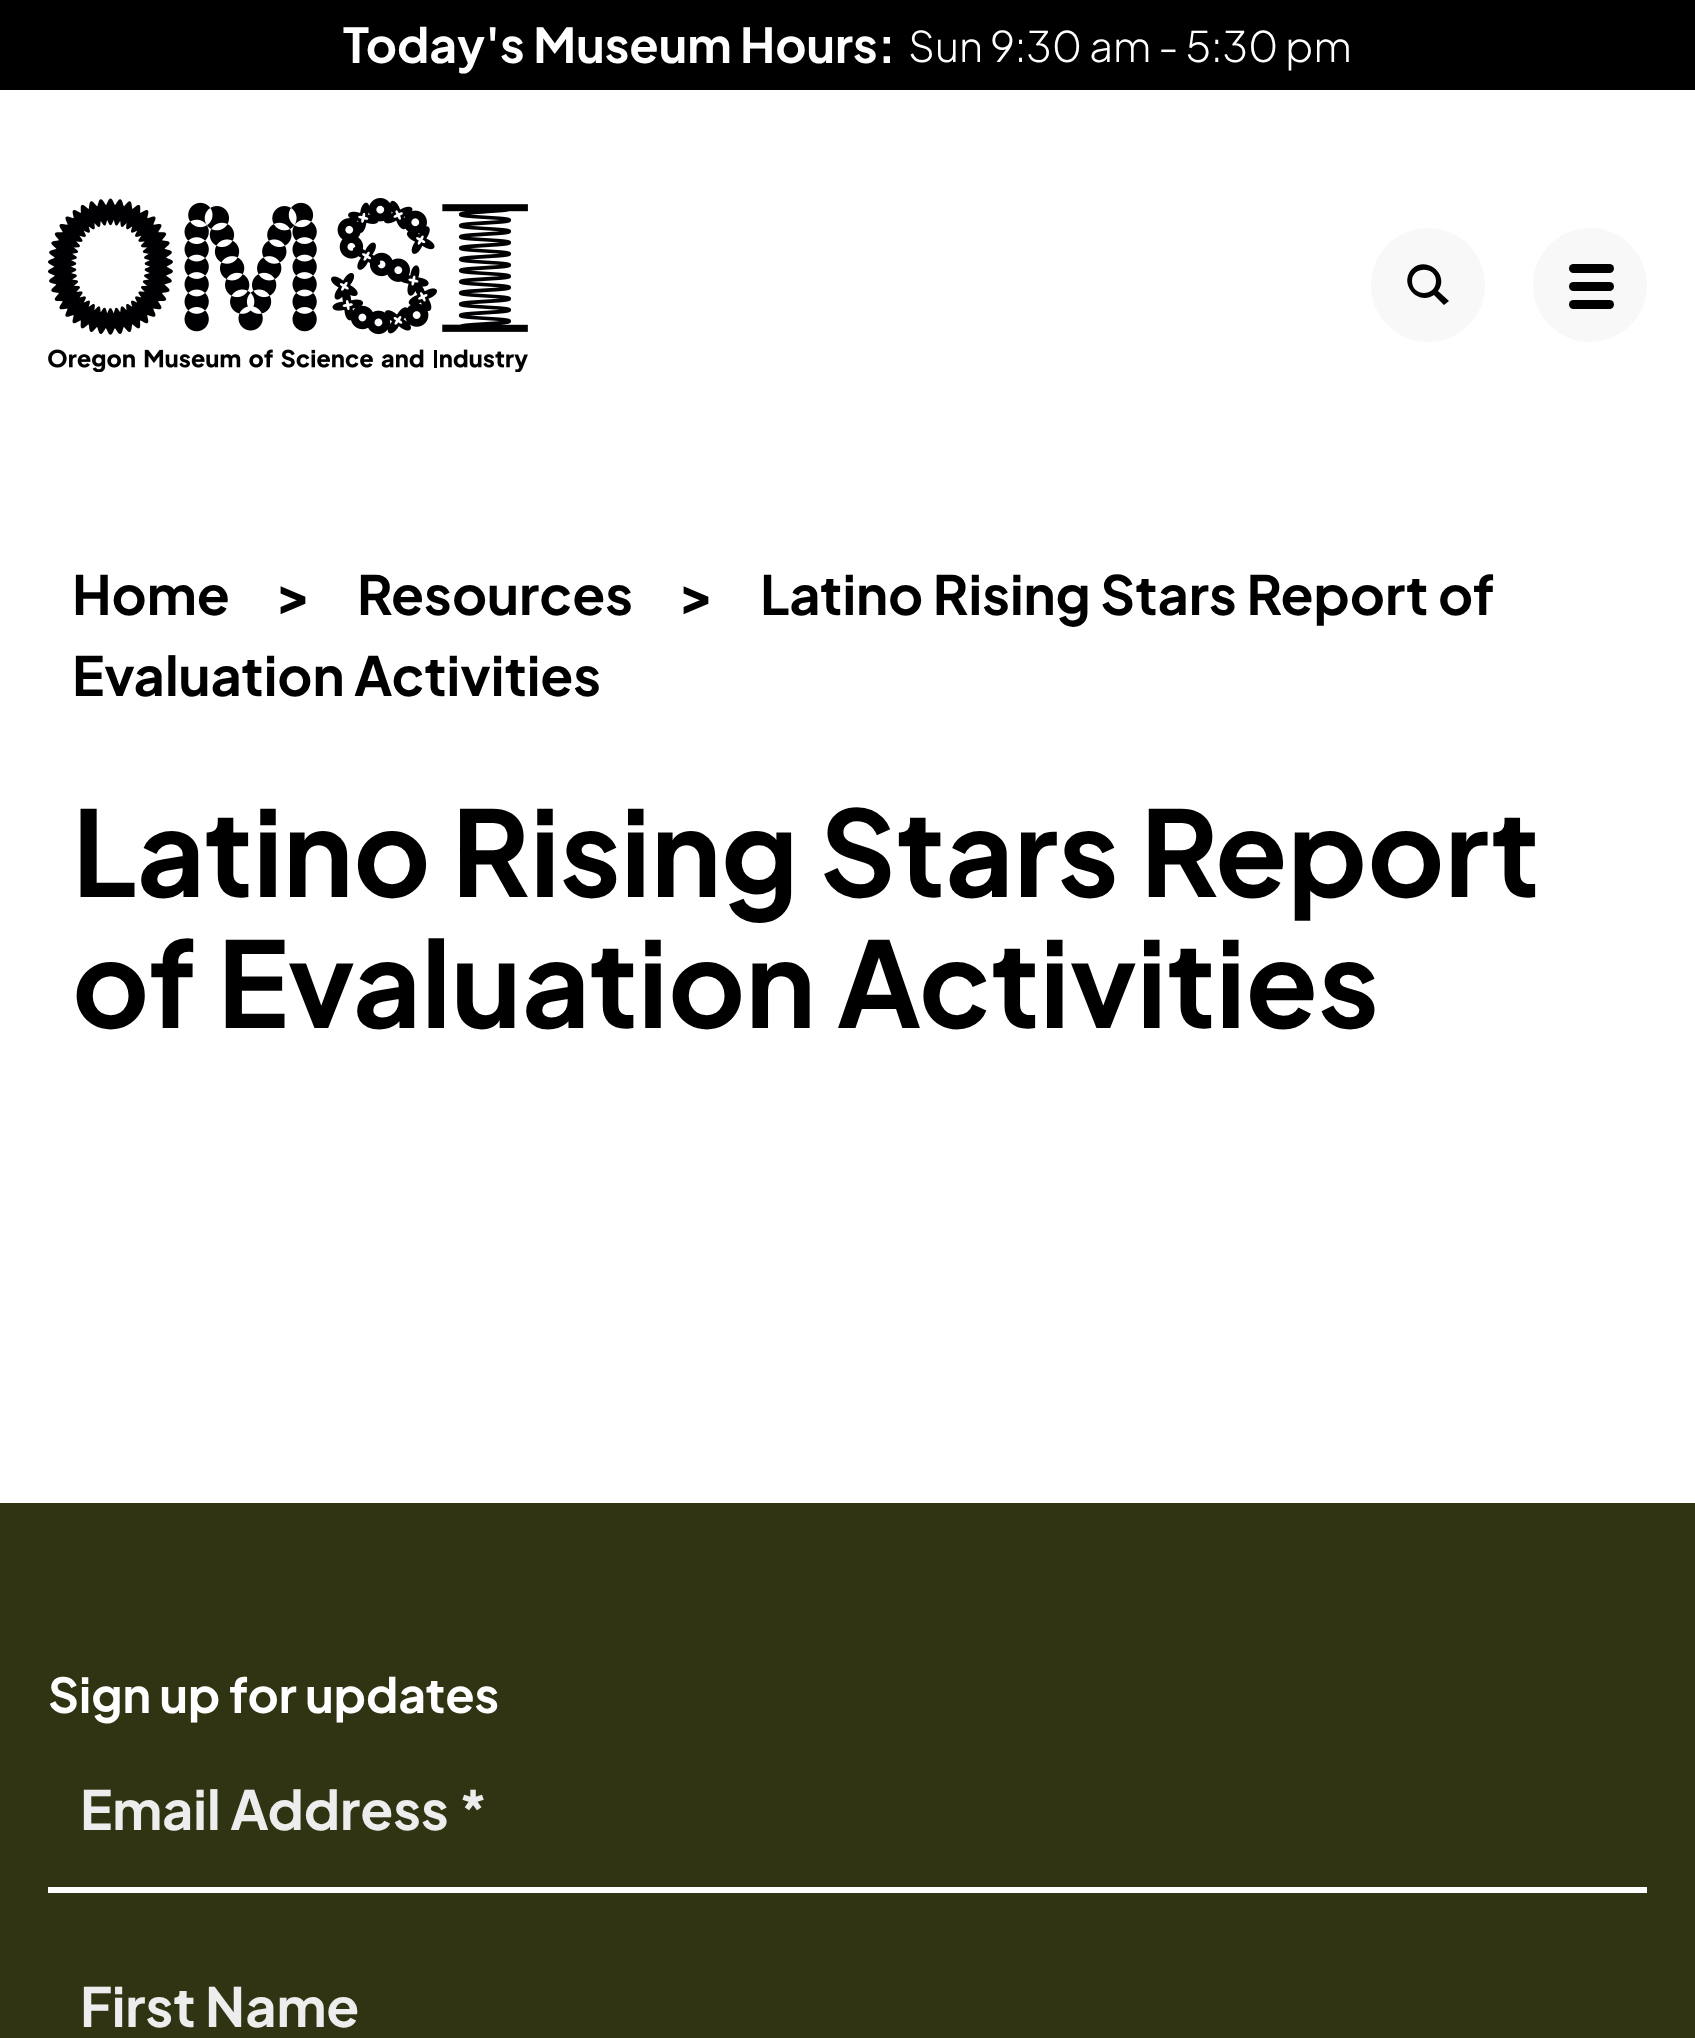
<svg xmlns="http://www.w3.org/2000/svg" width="1695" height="2038">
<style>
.a{font:bold 48px Plus Jakarta Sans;fill:#fff}
.b{font:300 42px Plus Jakarta Sans;fill:#fff}
.c{font:bold 54px Plus Jakarta Sans;fill:#000}
.d{font:bold 118.6px Plus Jakarta Sans;fill:#000}
.e{font:bold 54px Plus Jakarta Sans;fill:#ededed}
</style>
<rect width="100%" height="100%" fill="#fff"/>
<path fill="#000" d="M0 0h1695v90H0z"/>
<image href="1.png" x="48" y="198" width="480" height="174"/>
<circle fill="#f8f8f8" cx="1428" cy="285" r="57"/>
<path fill="#000" d="M1449 301l-11-10c12-16-11-36-26-22c-14 15 6 37 22 26l10 10zm-37-20c0-15 24-15 24 0c0 16-24 16-24 0z"/>
<circle fill="#f8f8f8" cx="1590" cy="285" r="57"/>
<rect fill="#000" x="1569" y="264" width="45" height="9" rx="4.5"/>
<rect fill="#000" x="1569" y="282" width="45" height="9" rx="4.5"/>
<rect fill="#000" x="1569" y="300" width="45" height="9" rx="4.5"/>
<path fill="#313413" d="M0 1503h1695v535H0z"/>
<path fill="#fff" d="M48 1887h1599v6H48z"/>
<text class="a" x="343" y="63">Today's Museum Hours:</text>
<text class="b" x="908" y="62">Sun 9:30 am - 5:30 pm</text>
<text class="c" x="72" y="615">Home</text>
<text class="c" x="275" y="615">&gt;</text>
<text class="c" x="357" y="615">Resources</text>
<text class="c" x="678" y="615">&gt;</text>
<text class="c" x="760" y="615">Latino Rising Stars Report of</text>
<text class="c" x="72" y="696">Evaluation Activities</text>
<text class="d" x="72" y="897">Latino Rising Stars Report</text>
<text class="d" x="72" y="1028">of Evaluation Activities</text>
<text class="a" x="48" y="1713">Sign up for updates</text>
<text class="e" x="80" y="1830">Email Address *</text>
<text class="e" x="80" y="2027">First Name</text>
</svg>
